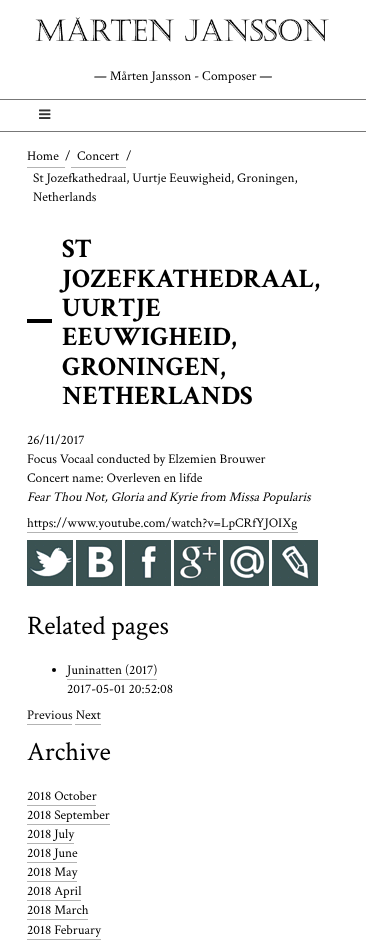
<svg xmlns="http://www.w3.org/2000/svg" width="366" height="950">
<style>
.a{font:13.3px Crimson Text;fill:#000}
.b{font:13.3px Liberation Serif;fill:#000}
.c{font:bold 26.75px Crimson Text;fill:#000}
.d{font:italic 13.3px Crimson Text;fill:#000}
.e{font:26.75px Crimson Text;fill:#000}
</style>
<rect width="100%" height="100%" fill="#fff"/>
<image href="1.png" x="35" y="17" width="294" height="25"/>
<path fill="#777" d="M0 99h366v1H0z"/>
<path fill="#777" d="M0 131h366v1H0z"/>
<image href="2.png" x="39" y="109" width="12" height="10"/>
<path fill="#b3b3b3" d="M27 167h38v1H27z"/>
<path fill="#b3b3b3" d="M71 167h55v1H71z"/>
<path fill="#000" d="M27 319h25v4H27z"/>
<path fill="#b3b3b3" d="M27 532h271v1H27z"/>
<image href="3.png" x="27" y="540" width="46" height="46"/>
<image href="4.png" x="76" y="540" width="46" height="46"/>
<image href="5.png" x="125" y="540" width="46" height="46"/>
<image href="6.png" x="174" y="540" width="46" height="46"/>
<image href="7.png" x="223" y="540" width="46" height="46"/>
<image href="8.png" x="272" y="540" width="46" height="46"/>
<circle fill="#000" cx="54" cy="670" r="2"/>
<path fill="#b3b3b3" d="M67 679h90v1H67z"/>
<path fill="#b3b3b3" d="M27 724h45v1H27z"/>
<path fill="#b3b3b3" d="M75 724h26v1H75z"/>
<path fill="#b3b3b3" d="M27 805h69v1H27z"/>
<path fill="#b3b3b3" d="M27 824h83v1H27z"/>
<path fill="#b3b3b3" d="M27 843h47v1H27z"/>
<path fill="#b3b3b3" d="M27 862h50v1H27z"/>
<path fill="#b3b3b3" d="M27 881h50v1H27z"/>
<path fill="#b3b3b3" d="M27 900h54v1H27z"/>
<path fill="#b3b3b3" d="M27 919h61v1H27z"/>
<path fill="#b3b3b3" d="M27 939h74v1H27z"/>
<text class="a" x="94" y="80">— Mårten Jansson -</text>
<text class="b" x="202" y="80">С</text>
<text class="a" x="211" y="80">omposer —</text>
<text class="a" x="27" y="160">Home</text>
<text class="a" x="65" y="160">/</text>
<text class="a" x="77" y="160">Concert</text>
<text class="a" x="126" y="160">/</text>
<text class="a" x="33" y="182">St Jozefkathedraal, Uurtje Eeuwigheid, Groningen,</text>
<text class="a" x="33" y="201">Netherlands</text>
<text class="c" x="62" y="257">ST</text>
<text class="c" x="62" y="287">JOZEFKATHEDRAAL,</text>
<text class="c" x="62" y="316">UURTJE</text>
<text class="c" x="62" y="345">EEUWIGHEID,</text>
<text class="c" x="62" y="375">GRONINGEN,</text>
<text class="c" x="62" y="404">NETHERLANDS</text>
<text class="a" x="27" y="444">26/11/2017</text>
<text class="a" x="27" y="463">Focus Vocaal conducted by Elzemien Brouwer</text>
<text class="a" x="27" y="482">Concert name: Overleven en lifde</text>
<text class="d" x="27" y="501">Fear Thou Not, Gloria and Kyrie from Missa Popularis</text>
<text class="a" x="27" y="527">https://www.youtube.com/watch?v=LpCRfYJOIXg</text>
<text class="e" x="27" y="634">Related pages</text>
<text class="a" x="67" y="674">Juninatten (2017)</text>
<text class="a" x="67" y="693">2017-05-01 20:52:08</text>
<text class="a" x="27" y="719">Previous Next</text>
<text class="e" x="27" y="760">Archive</text>
<text class="a" x="27" y="800">2018 October</text>
<text class="a" x="27" y="819">2018 September</text>
<text class="a" x="27" y="838">2018 July</text>
<text class="a" x="27" y="857">2018 June</text>
<text class="a" x="27" y="876">2018 May</text>
<text class="a" x="27" y="895">2018 April</text>
<text class="a" x="27" y="914">2018 March</text>
<text class="a" x="27" y="934">2018 February</text>
</svg>
